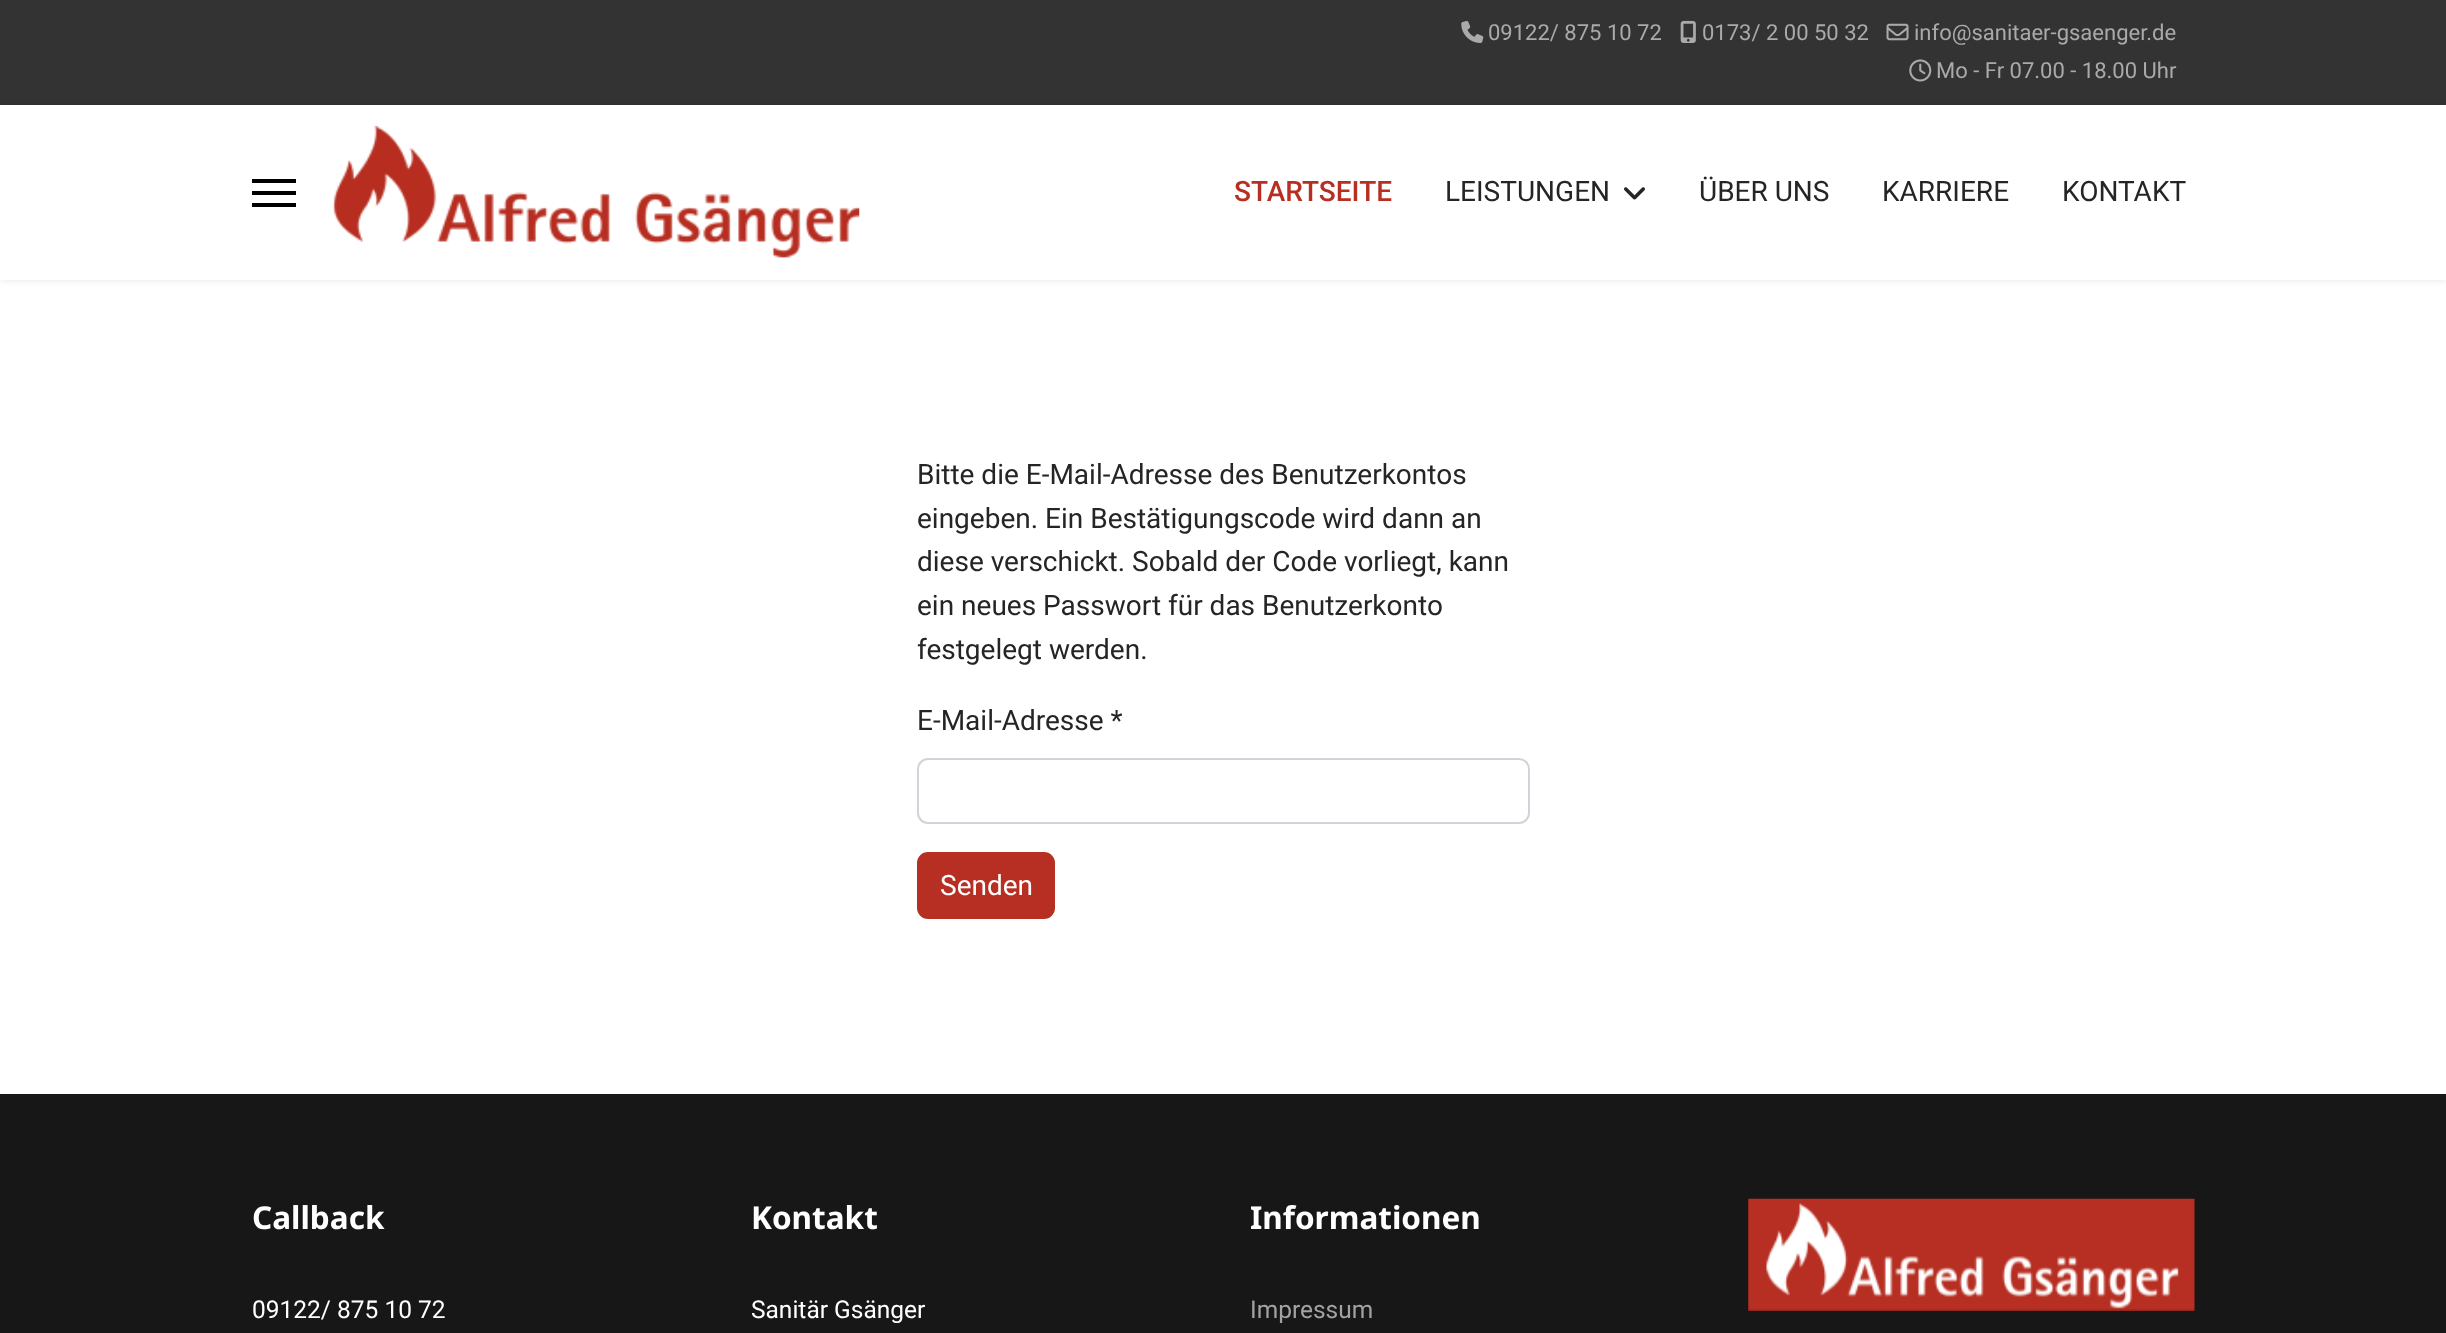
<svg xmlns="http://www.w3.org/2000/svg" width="2446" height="1333">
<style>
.a{font:22px Roboto;fill:#aaa}
.b{font:500 28px Roboto;fill:#b72f22}
.c{font:28px Roboto;fill:#252525}
.d{font:28px Roboto;fill:#fff}
.e{font:bold 31.5px Noto Sans;fill:#fff}
.f{font:24.5px Roboto;fill:#fff}
.g{font:24.5px Roboto;fill:#a2a2a2}
</style>
<defs>
<clipPath id="clip1"><path d="M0 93h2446v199h-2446zm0 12h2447v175h-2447z" clip-rule="evenodd"/></clipPath>
</defs>
<rect width="100%" height="100%" fill="#fff"/>
<path fill="#333" d="M0 0h2446v105H0z"/>
<image href="1.png" x="1461" y="21" width="23" height="22"/>
<image href="2.png" x="1680" y="20" width="16" height="23"/>
<image href="3.png" x="1886" y="23" width="23" height="18"/>
<image href="4.png" x="1909" y="59" width="23" height="23"/>
<g clip-path="url(#clip1)">
<path fill="#0000001a" filter="blur(3.5px)" d="M0 105h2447v175H0z"/>
</g>
<path fill="#000" d="M252 179h44v4H252z"/>
<path fill="#000" d="M252 191h44v4H252z"/>
<path fill="#000" d="M252 203h44v4H252z"/>
<image href="5.png" x="332" y="126" width="528" height="132"/>
<image href="6.png" x="1624" y="187" width="21" height="13"/>
<rect fill="none" stroke="#ced4da" stroke-width="2" x="918" y="759" width="611" height="64" rx="10"/>
<rect fill="#b72f22" stroke="#b72f22" stroke-width="2" x="918" y="853" width="136" height="65" rx="10"/>
<path fill="#171717" d="M0 1094h2446v239H0z"/>
<image href="7.png" x="1748" y="1198" width="447" height="113"/>
<text class="a" x="1488" y="40">09122/ 875 10 72</text>
<text class="a" x="1702" y="40">0173/ 2 00 50 32</text>
<text class="a" x="1914" y="40">info@sanitaer-gsaenger.de</text>
<text class="a" x="1936" y="78">Mo - Fr 07.00 - 18.00 Uhr</text>
<text class="b" x="1234" y="201">STARTSEITE</text>
<text class="c" x="1445" y="201">LEISTUNGEN</text>
<text class="c" x="1699" y="201">ÜBER UNS</text>
<text class="c" x="1882" y="201">KARRIERE</text>
<text class="c" x="2062" y="201">KONTAKT</text>
<text class="c" x="917" y="484">Bitte die E-Mail-Adresse des Benutzerkontos</text>
<text class="c" x="917" y="528">eingeben. Ein Bestätigungscode wird dann an</text>
<text class="c" x="917" y="571">diese verschickt. Sobald der Code vorliegt, kann</text>
<text class="c" x="917" y="615">ein neues Passwort für das Benutzerkonto</text>
<text class="c" x="917" y="659">festgelegt werden.</text>
<text class="c" x="917" y="730">E-Mail-Adresse *</text>
<text class="d" x="940" y="895">Senden</text>
<text class="e" x="252" y="1229">Callback</text>
<text class="f" x="252" y="1318">09122/ 875 10 72</text>
<text class="e" x="751" y="1229">Kontakt</text>
<text class="f" x="751" y="1318">Sanitär Gsänger</text>
<text class="e" x="1250" y="1229">Informationen</text>
<text class="g" x="1250" y="1318">Impressum</text>
</svg>
